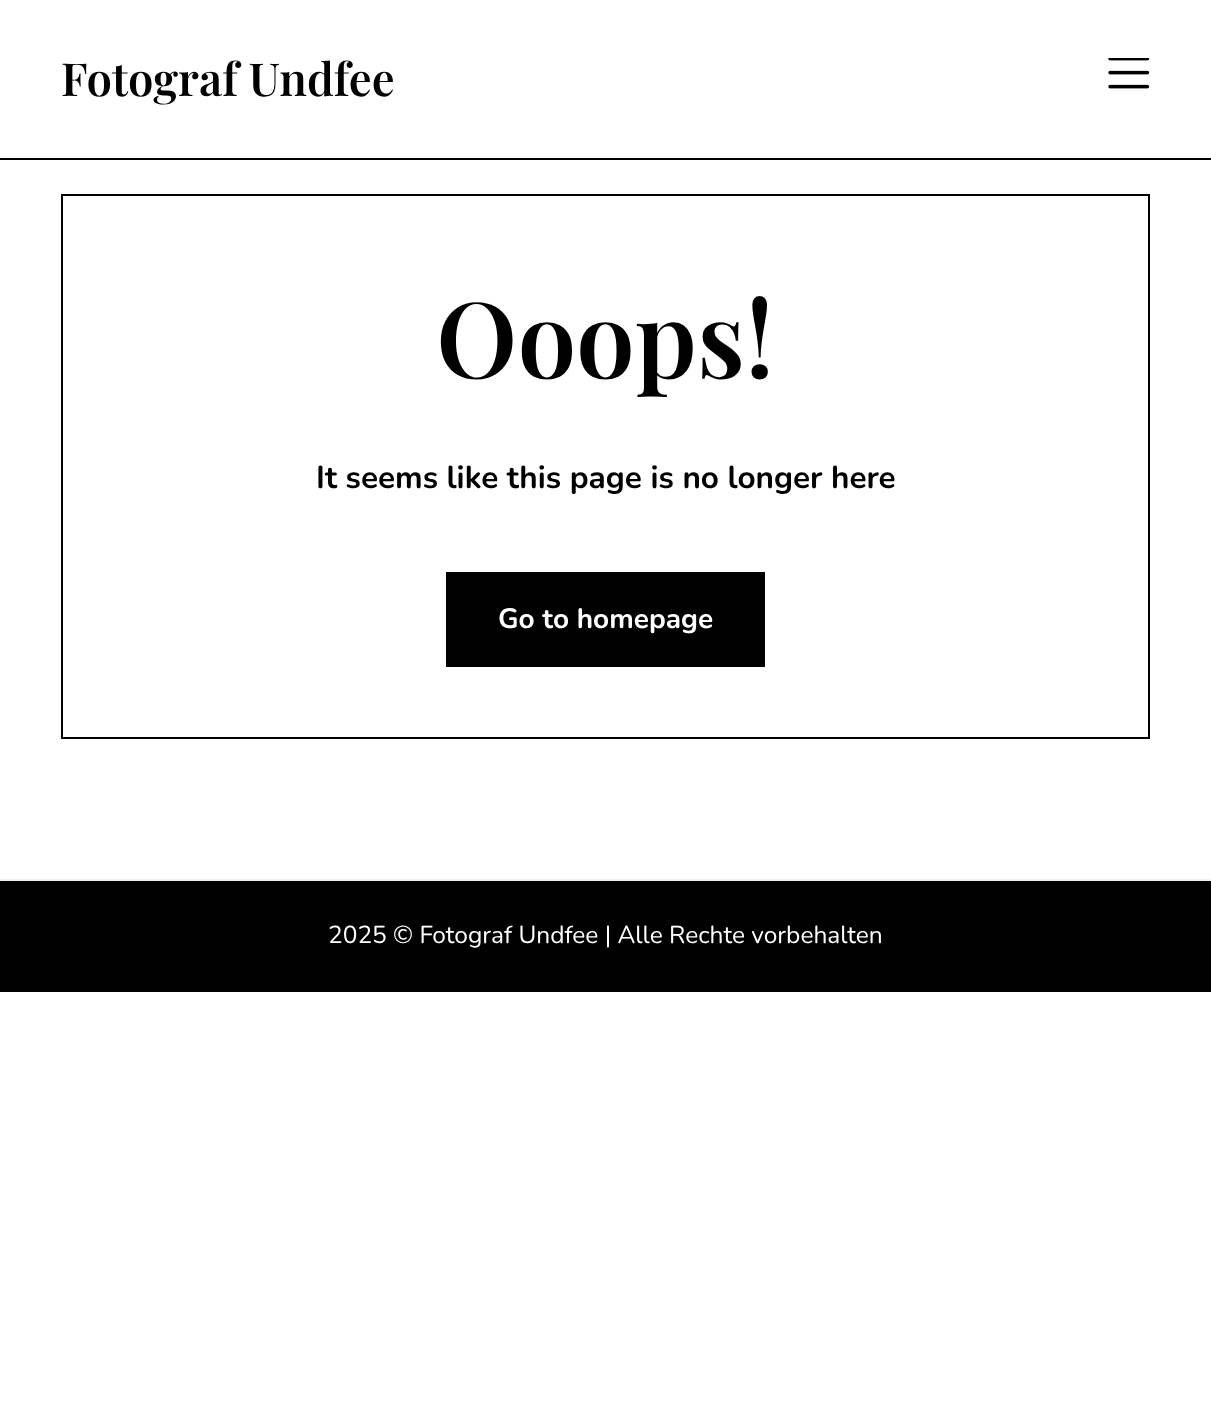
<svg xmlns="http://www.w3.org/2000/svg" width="1211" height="1417">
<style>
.a{font:600 45.5px Playfair Display;fill:#000}
.b{font:600 105px Playfair Display;fill:#000}
.c{font:bold 31.5px Nunito;fill:#000}
.d{font:bold 28px Nunito;fill:#fff}
.e{font:24.5px Nunito;fill:#fff}
</style>
<rect width="100%" height="100%" fill="#fff"/>
<path fill="#000" d="M0 158h1211v2H0z"/>
<image href="1.png" x="1108" y="58" width="42" height="31"/>
<path fill="none" stroke="#000" stroke-width="2" d="M62 195h1087v543H62z"/>
<path fill="#000" d="M446 572h319v95H446z"/>
<path fill="#000" d="M0 881h1211v111H0z"/>
<path fill="#efefef" d="M0 879h1211v2H0z"/>
<text class="a" x="61" y="96">Fotograf Undfee</text>
<text class="b" x="436" y="378">Ooops!</text>
<text class="c" x="316" y="488">It seems like this page is no longer here</text>
<text class="d" x="498" y="628">Go to homepage</text>
<text class="e" x="328" y="943">2025 © Fotograf Undfee | Alle Rechte vorbehalten</text>
</svg>
